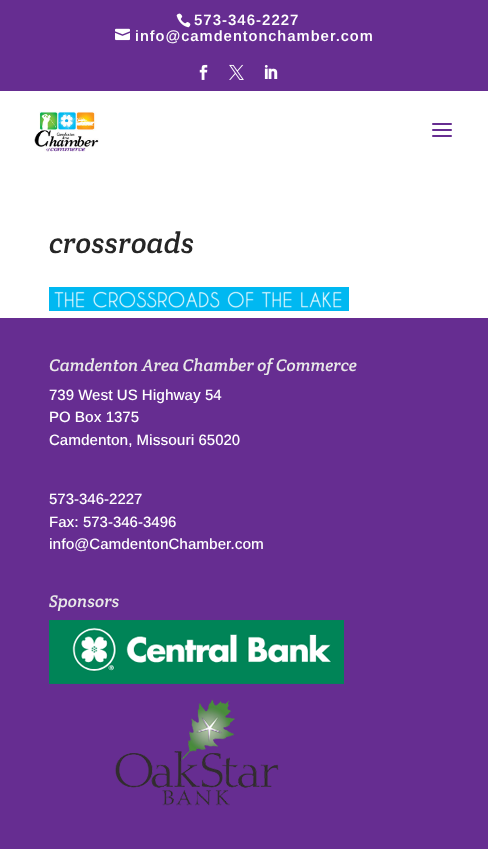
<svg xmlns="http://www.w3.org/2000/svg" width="488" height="849">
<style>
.a{font:600 15px Arimo;letter-spacing:1px;fill:#fff}
.b{font:italic 29px Crete Round;fill:#262626}
.c{font:italic 17px Crete Round;fill:#e8e8e8}
.d{font:500 15px Arimo;fill:#fff}
</style>
<rect width="100%" height="100%" fill="#fff"/>
<path fill="#662d91" d="M0 0h488v91H0z"/>
<image href="1.png" x="176" y="13" width="15" height="15"/>
<image href="2.png" x="115" y="28" width="15" height="13"/>
<image href="3.png" x="199" y="64" width="9" height="16"/>
<image href="4.png" x="229" y="64" width="15" height="16"/>
<image href="5.png" x="264" y="64" width="14" height="15"/>
<image href="6.png" x="34" y="111" width="65" height="41"/>
<image href="7.png" x="432" y="123" width="20" height="14"/>
<image href="8.png" x="49" y="287" width="300" height="24"/>
<path fill="#662d91" d="M0 318h488v531H0z"/>
<image href="9.png" x="49" y="620" width="295" height="186"/>
<text class="a" x="194" y="25">573-346-2227</text>
<text class="a" x="135" y="41">info@camdentonchamber.com</text>
<text class="b" x="49" y="253">crossroads</text>
<text class="c" x="49" y="371">Camdenton Area Chamber of Commerce</text>
<text class="d" x="49" y="400">739 West US Highway 54</text>
<text class="d" x="49" y="422">PO Box 1375</text>
<text class="d" x="49" y="445">Camdenton, Missouri 65020</text>
<text class="d" x="49" y="504">573-346-2227</text>
<text class="d" x="49" y="527">Fax: 573-346-3496</text>
<text class="d" x="49" y="549">info@CamdentonChamber.com</text>
<text class="c" x="49" y="607">Sponsors</text>
</svg>
